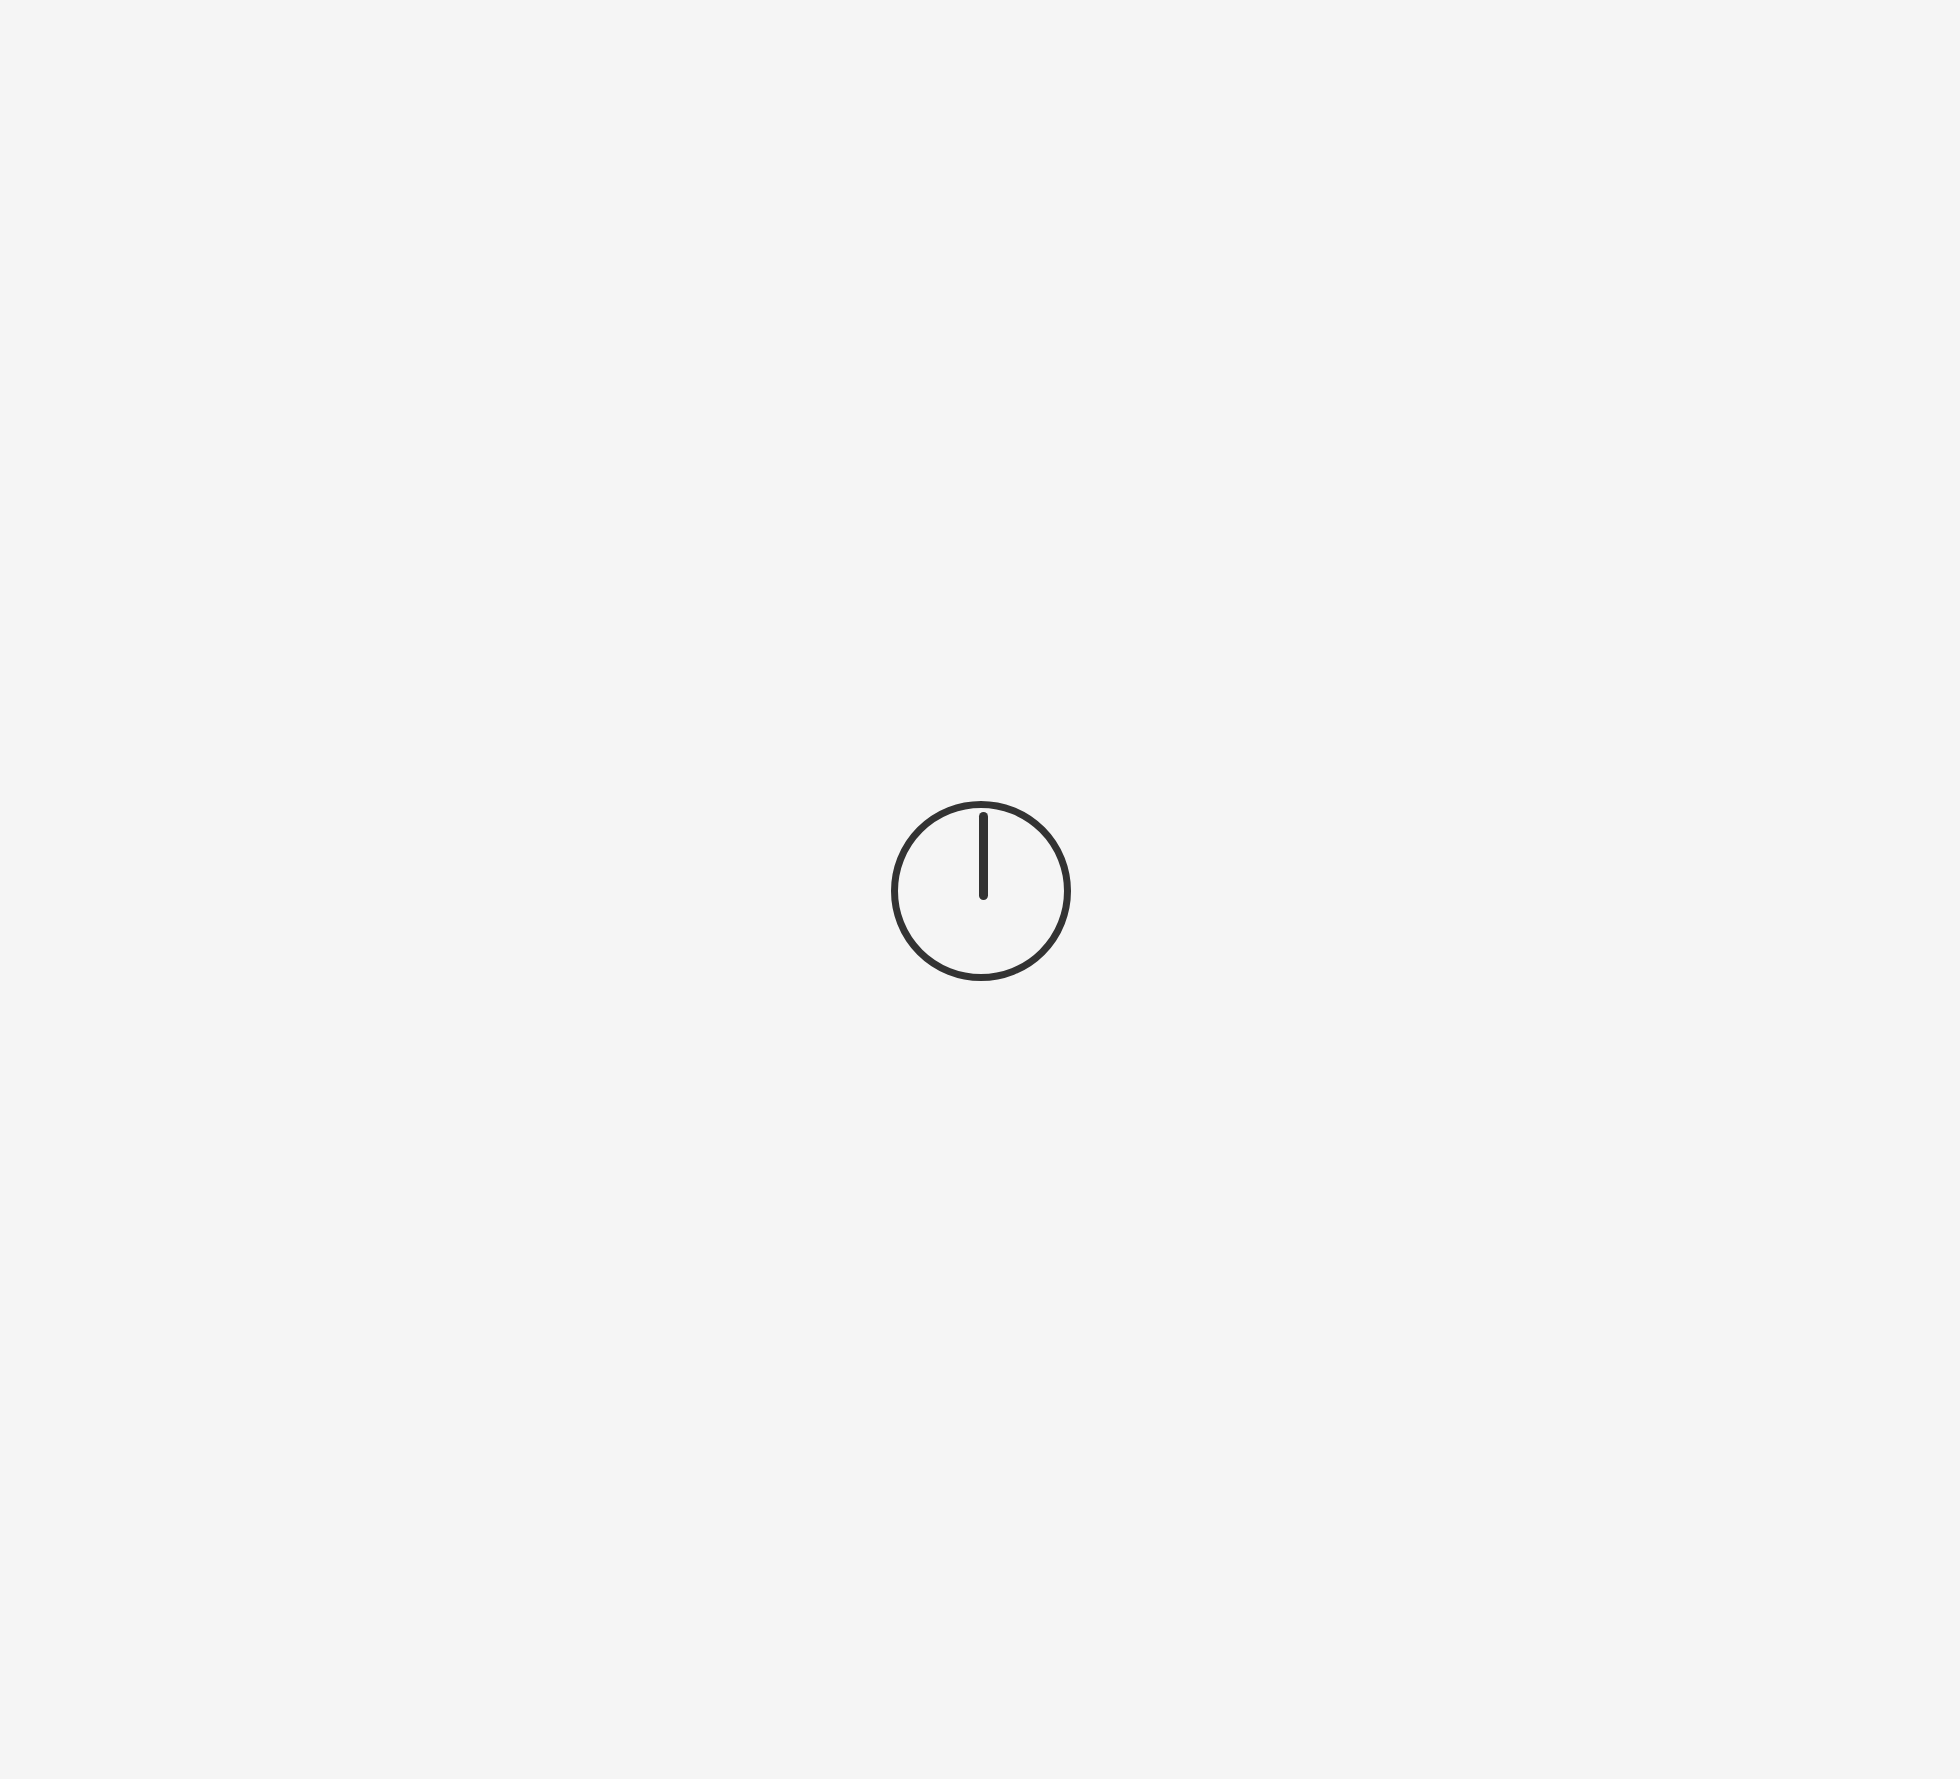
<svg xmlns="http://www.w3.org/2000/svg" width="1960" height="1779">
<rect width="100%" height="100%" fill="#f5f5f5"/>
<circle fill="none" stroke="#333" stroke-width="7" cx="981" cy="891" r="86.5"/>
<rect fill="#333" x="979" y="821" width="9" height="79" rx="4.5"/>
<rect fill="#333" x="979" y="812" width="9" height="86" rx="4.5"/>
</svg>
